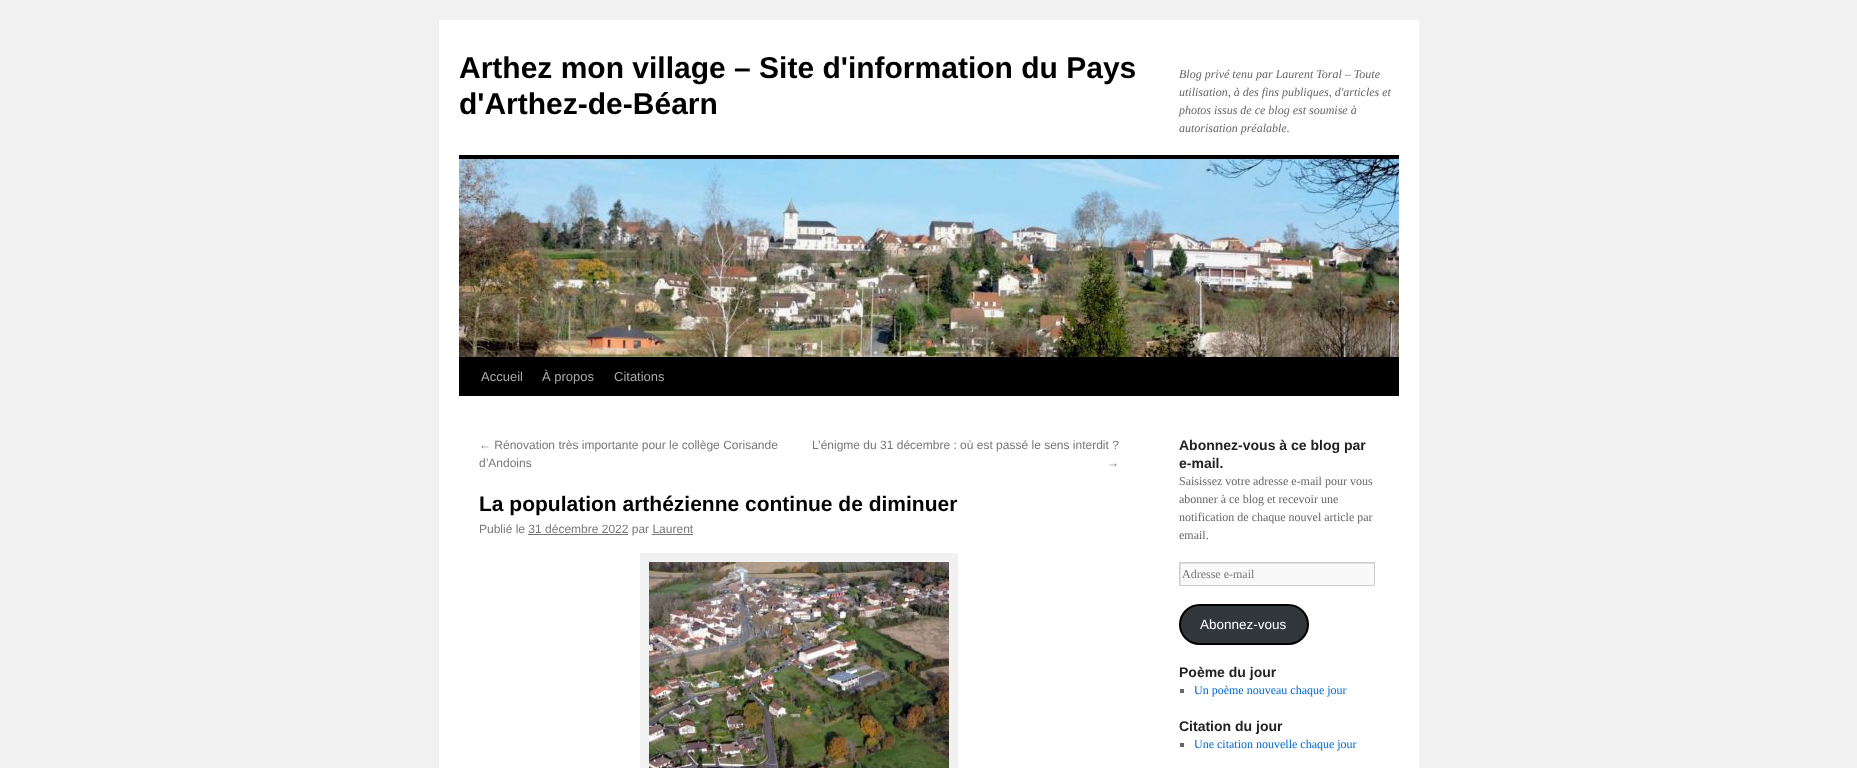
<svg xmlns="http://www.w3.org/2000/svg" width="1857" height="768">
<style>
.a{font:bold 30px Liberation Sans;fill:#000}
.b{font:italic 12px Liberation Serif;fill:#666}
.c{font:13px Liberation Sans;fill:#aaa}
.d{font:12px Liberation Sans;fill:#777}
.e{font:bold 21px Liberation Sans;fill:#000}
.f{font:bold 14px Liberation Sans;fill:#222}
.g{font:12px Liberation Serif;fill:#666}
.h{font:12px Liberation Serif;fill:#777}
.i{font:13.5px Liberation Sans;fill:#fff}
.j{font:12px Liberation Serif;fill:#06c}
</style>
<defs>
<clipPath id="clip1"><path d="M1180 563h194v22H1180z"/></clipPath>
</defs>
<rect width="100%" height="100%" fill="#f1f1f1"/>
<path fill="#fff" d="M439 20h980v748H439z"/>
<path fill="#000" d="M459 155h940v4H459z"/>
<path fill="#000" d="M459 357h940v39H459z"/>
<image href="1.png" x="459" y="159" width="940" height="198"/>
<path fill="#777" d="M528 534h100v1H528z"/>
<path fill="#777" d="M652 534h41v1H652z"/>
<path fill="#f1f1f1" d="M640 553h318v215H640z"/>
<image href="2.png" x="649" y="562" width="300" height="206"/>
<path fill="#f9f9f9" d="M1181 564h193v21H1181z"/>
<g clip-path="url(#clip1)">
<path fill="#e0e0e0" fill-rule="evenodd" d="M1081 464h392v220h-392zm100 100h194v22h-194z"/>
</g>
<path fill="none" stroke="#ccc" d="M1179.5 562.5h195v23H1179.5z"/>
<rect fill="#32373c" stroke="#000" stroke-width="2" x="1180" y="605" width="128" height="39" rx="19.5"/>
<path fill="#666" d="M1180 689h4v4H1180z"/>
<path fill="#666" d="M1180 743h4v4H1180z"/>
<text class="a" x="459" y="78">Arthez mon village – Site d'information du Pays</text>
<text class="a" x="459" y="114">d'Arthez-de-Béarn</text>
<text class="b" x="1179" y="78">Blog privé tenu par Laurent Toral – Toute</text>
<text class="b" x="1179" y="96">utilisation, à des fins publiques, d'articles et</text>
<text class="b" x="1179" y="114">photos issus de ce blog est soumise à</text>
<text class="b" x="1179" y="132">autorisation préalable.</text>
<text class="c" x="481" y="381">Accueil</text>
<text class="c" x="542" y="381">À propos</text>
<text class="c" x="614" y="381">Citations</text>
<text class="d" x="479" y="449">← Rénovation très importante pour le collège Corisande</text>
<text class="d" x="479" y="467">d’Andoins</text>
<text class="d" x="812" y="449">L’énigme du 31 décembre : où est passé le sens interdit ?</text>
<text class="d" x="1107" y="467">→</text>
<text class="e" x="479" y="511">La population arthézienne continue de diminuer</text>
<text class="d" x="479" y="533">Publié le 31 décembre 2022 par Laurent</text>
<text class="f" x="1179" y="450">Abonnez-vous à ce blog par</text>
<text class="f" x="1179" y="468">e-mail.</text>
<text class="g" x="1179" y="485">Saisissez votre adresse e-mail pour vous</text>
<text class="g" x="1179" y="503">abonner à ce blog et recevoir une</text>
<text class="g" x="1179" y="521">notification de chaque nouvel article par</text>
<text class="g" x="1179" y="539">email.</text>
<text class="h" x="1182" y="578">Adresse e-mail</text>
<text class="i" x="1200" y="629">Abonnez-vous</text>
<text class="f" x="1179" y="677">Poème du jour</text>
<text class="j" x="1194" y="694">Un poème nouveau chaque jour</text>
<text class="f" x="1179" y="731">Citation du jour</text>
<text class="j" x="1194" y="748">Une citation nouvelle chaque jour</text>
</svg>
